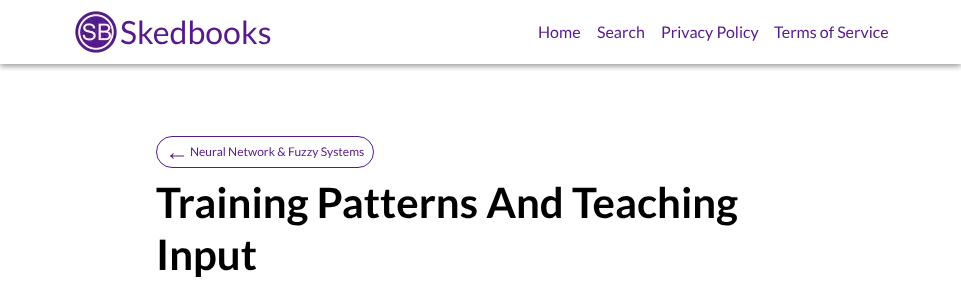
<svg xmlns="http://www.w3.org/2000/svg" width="961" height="307">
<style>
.a{font:32px Lato;fill:#561a8b}
.b{font:16px Lato;fill:#561a8b}
.c{font:24px Liberation Sans;fill:#561a8b}
.d{font:12px Lato;fill:#561a8b}
.e{font:bold 42px Lato;fill:#000}
</style>
<defs>
<clipPath id="clip1"><path d="M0 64h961v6H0z"/></clipPath>
<clipPath id="clip2"><path d="M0 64h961v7H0z"/></clipPath>
<clipPath id="clip3"><path d="M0 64h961v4H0z"/></clipPath>
</defs>
<rect width="100%" height="100%" fill="#fff"/>
<g clip-path="url(#clip1)">
<path fill="#0000001f" filter="blur(5px)" d="M0 1h961v64H0z"/>
</g>
<g clip-path="url(#clip2)">
<path fill="#00000024" filter="blur(2.5px)" d="M0 4h961v64H0z"/>
</g>
<g clip-path="url(#clip3)">
<path fill="#00000033" filter="blur(2px)" d="M1 3h959v62H1z"/>
</g>
<image href="1.png" x="75" y="11" width="42" height="42"/>
<rect fill="none" stroke="#561a8b" x="156.5" y="136.5" width="217" height="31" rx="15.5"/>
<text class="a" x="120" y="44">Skedbooks</text>
<text class="b" x="538" y="38">Home</text>
<text class="b" x="597" y="38">Search</text>
<text class="b" x="661" y="38">Privacy Policy</text>
<text class="b" x="774" y="38">Terms of Service</text>
<text class="c" x="165" y="160">←</text>
<text class="d" x="190" y="156">Neural Network &amp; Fuzzy Systems</text>
<text class="e" x="156" y="218">Training Patterns And Teaching</text>
<text class="e" x="156" y="270">Input</text>
</svg>
